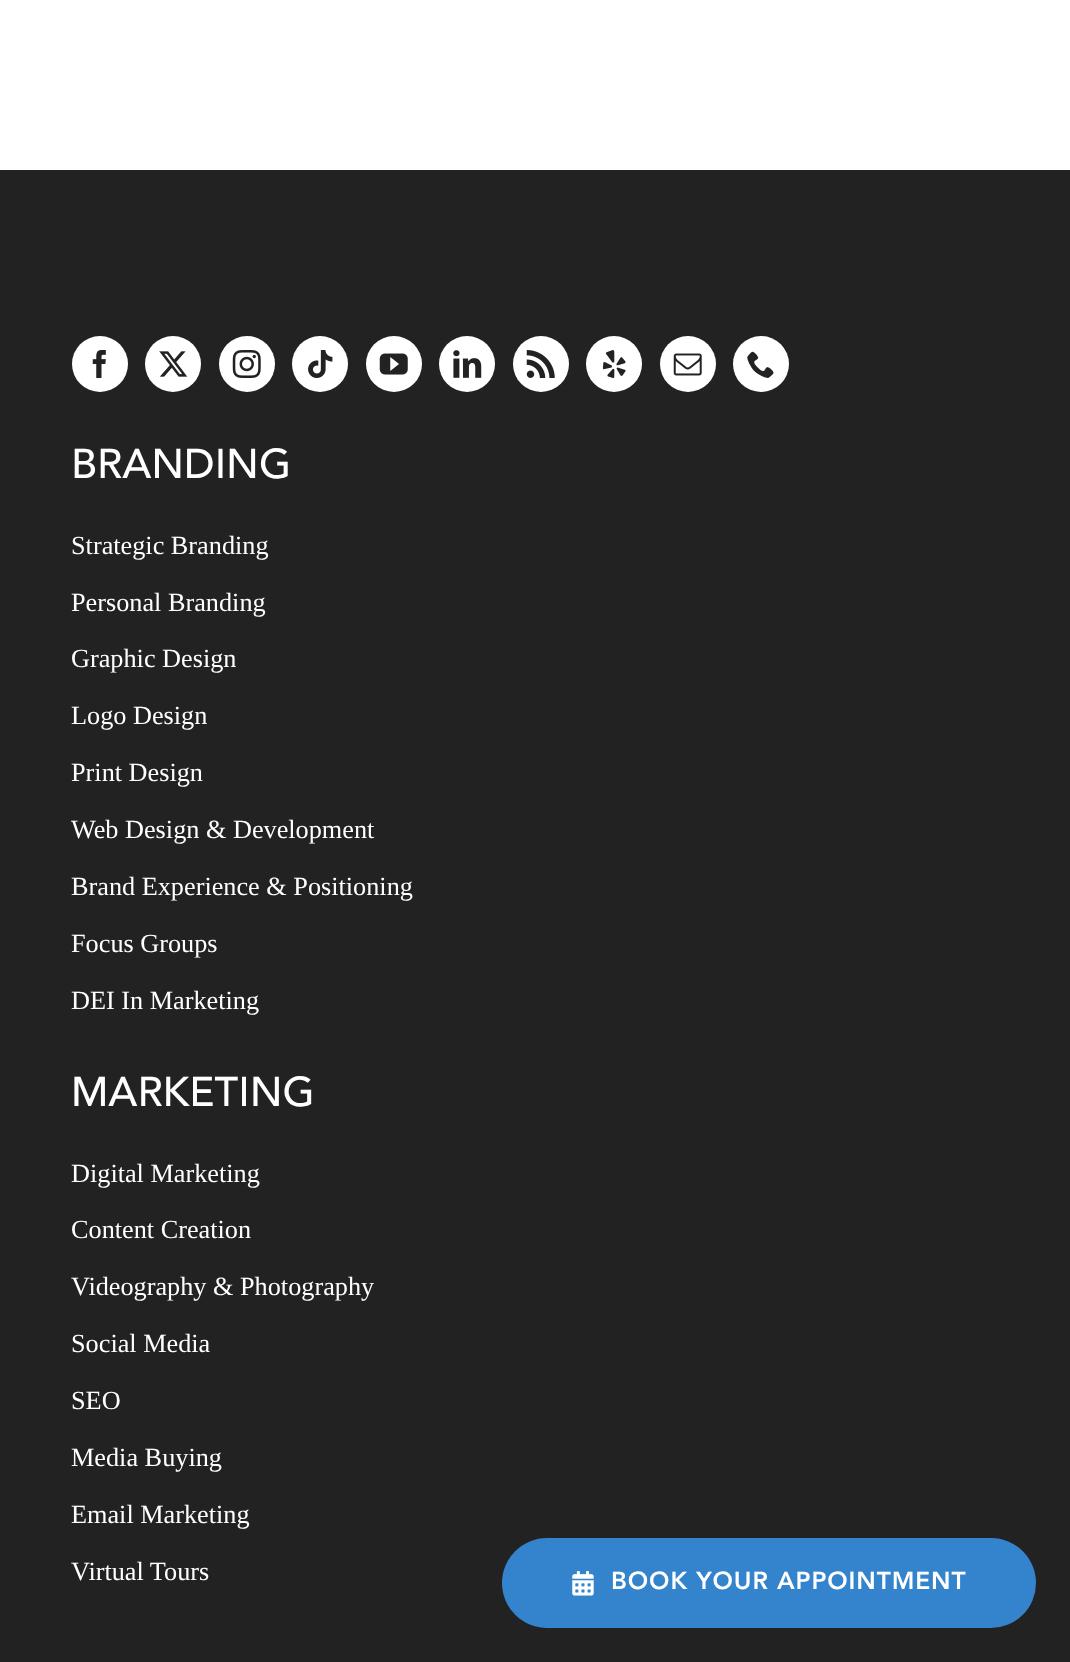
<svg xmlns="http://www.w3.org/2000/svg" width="1070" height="1662">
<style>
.a{font:500 41.25px 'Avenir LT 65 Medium';fill:#fff}
.b{font:26.25px Liberation Serif;fill:#fff}
.c{font:900 24.5px Avenir;letter-spacing:0.9px;fill:#fff}
</style>
<rect width="100%" height="100%" fill="#fff"/>
<path fill="#222" d="M0 170h1070v1492H0z"/>
<circle fill="#fff" cx="100" cy="364" r="28"/>
<image href="1.png" x="92" y="350" width="14" height="28"/>
<circle fill="#fff" cx="173" cy="364" r="28"/>
<image href="2.png" x="159" y="351" width="29" height="26"/>
<circle fill="#fff" cx="247" cy="364" r="28"/>
<image href="3.png" x="232" y="350" width="29" height="28"/>
<circle fill="#fff" cx="320" cy="364" r="28"/>
<image href="4.png" x="308" y="350" width="25" height="28"/>
<circle fill="#fff" cx="394" cy="364" r="28"/>
<image href="5.png" x="379" y="353" width="29" height="22"/>
<circle fill="#fff" cx="467" cy="364" r="28"/>
<image href="6.png" x="453" y="350" width="29" height="28"/>
<circle fill="#fff" cx="541" cy="364" r="28"/>
<image href="7.png" x="526" y="350" width="29" height="28"/>
<circle fill="#fff" cx="614" cy="364" r="28"/>
<image href="8.png" x="602" y="350" width="24" height="28"/>
<circle fill="#fff" cx="688" cy="364" r="28"/>
<image href="9.png" x="673" y="353" width="29" height="23"/>
<circle fill="#fff" cx="761" cy="364" r="28"/>
<image href="10.png" x="747" y="351" width="27" height="27"/>
<rect fill="#3483cd" x="502" y="1538" width="534" height="90" rx="45"/>
<image href="11.png" x="572" y="1571" width="22" height="25"/>
<text class="a" x="71" y="478">BRANDING</text>
<text class="b" x="71" y="554">Strategic Branding</text>
<text class="b" x="71" y="611">Personal Branding</text>
<text class="b" x="71" y="667">Graphic Design</text>
<text class="b" x="71" y="724">Logo Design</text>
<text class="b" x="71" y="781">Print Design</text>
<text class="b" x="71" y="838">Web Design &amp; Development</text>
<text class="b" x="71" y="895">Brand Experience &amp; Positioning</text>
<text class="b" x="71" y="952">Focus Groups</text>
<text class="b" x="71" y="1009">DEI In Marketing</text>
<text class="a" x="71" y="1106">MARKETING</text>
<text class="b" x="71" y="1182">Digital Marketing</text>
<text class="b" x="71" y="1238">Content Creation</text>
<text class="b" x="71" y="1295">Videography &amp; Photography</text>
<text class="b" x="71" y="1352">Social Media</text>
<text class="b" x="71" y="1409">SEO</text>
<text class="b" x="71" y="1466">Media Buying</text>
<text class="b" x="71" y="1523">Email Marketing</text>
<text class="b" x="71" y="1580">Virtual Tours</text>
<text class="c" x="611" y="1589">BOOK YOUR APPOINTMENT</text>
</svg>
